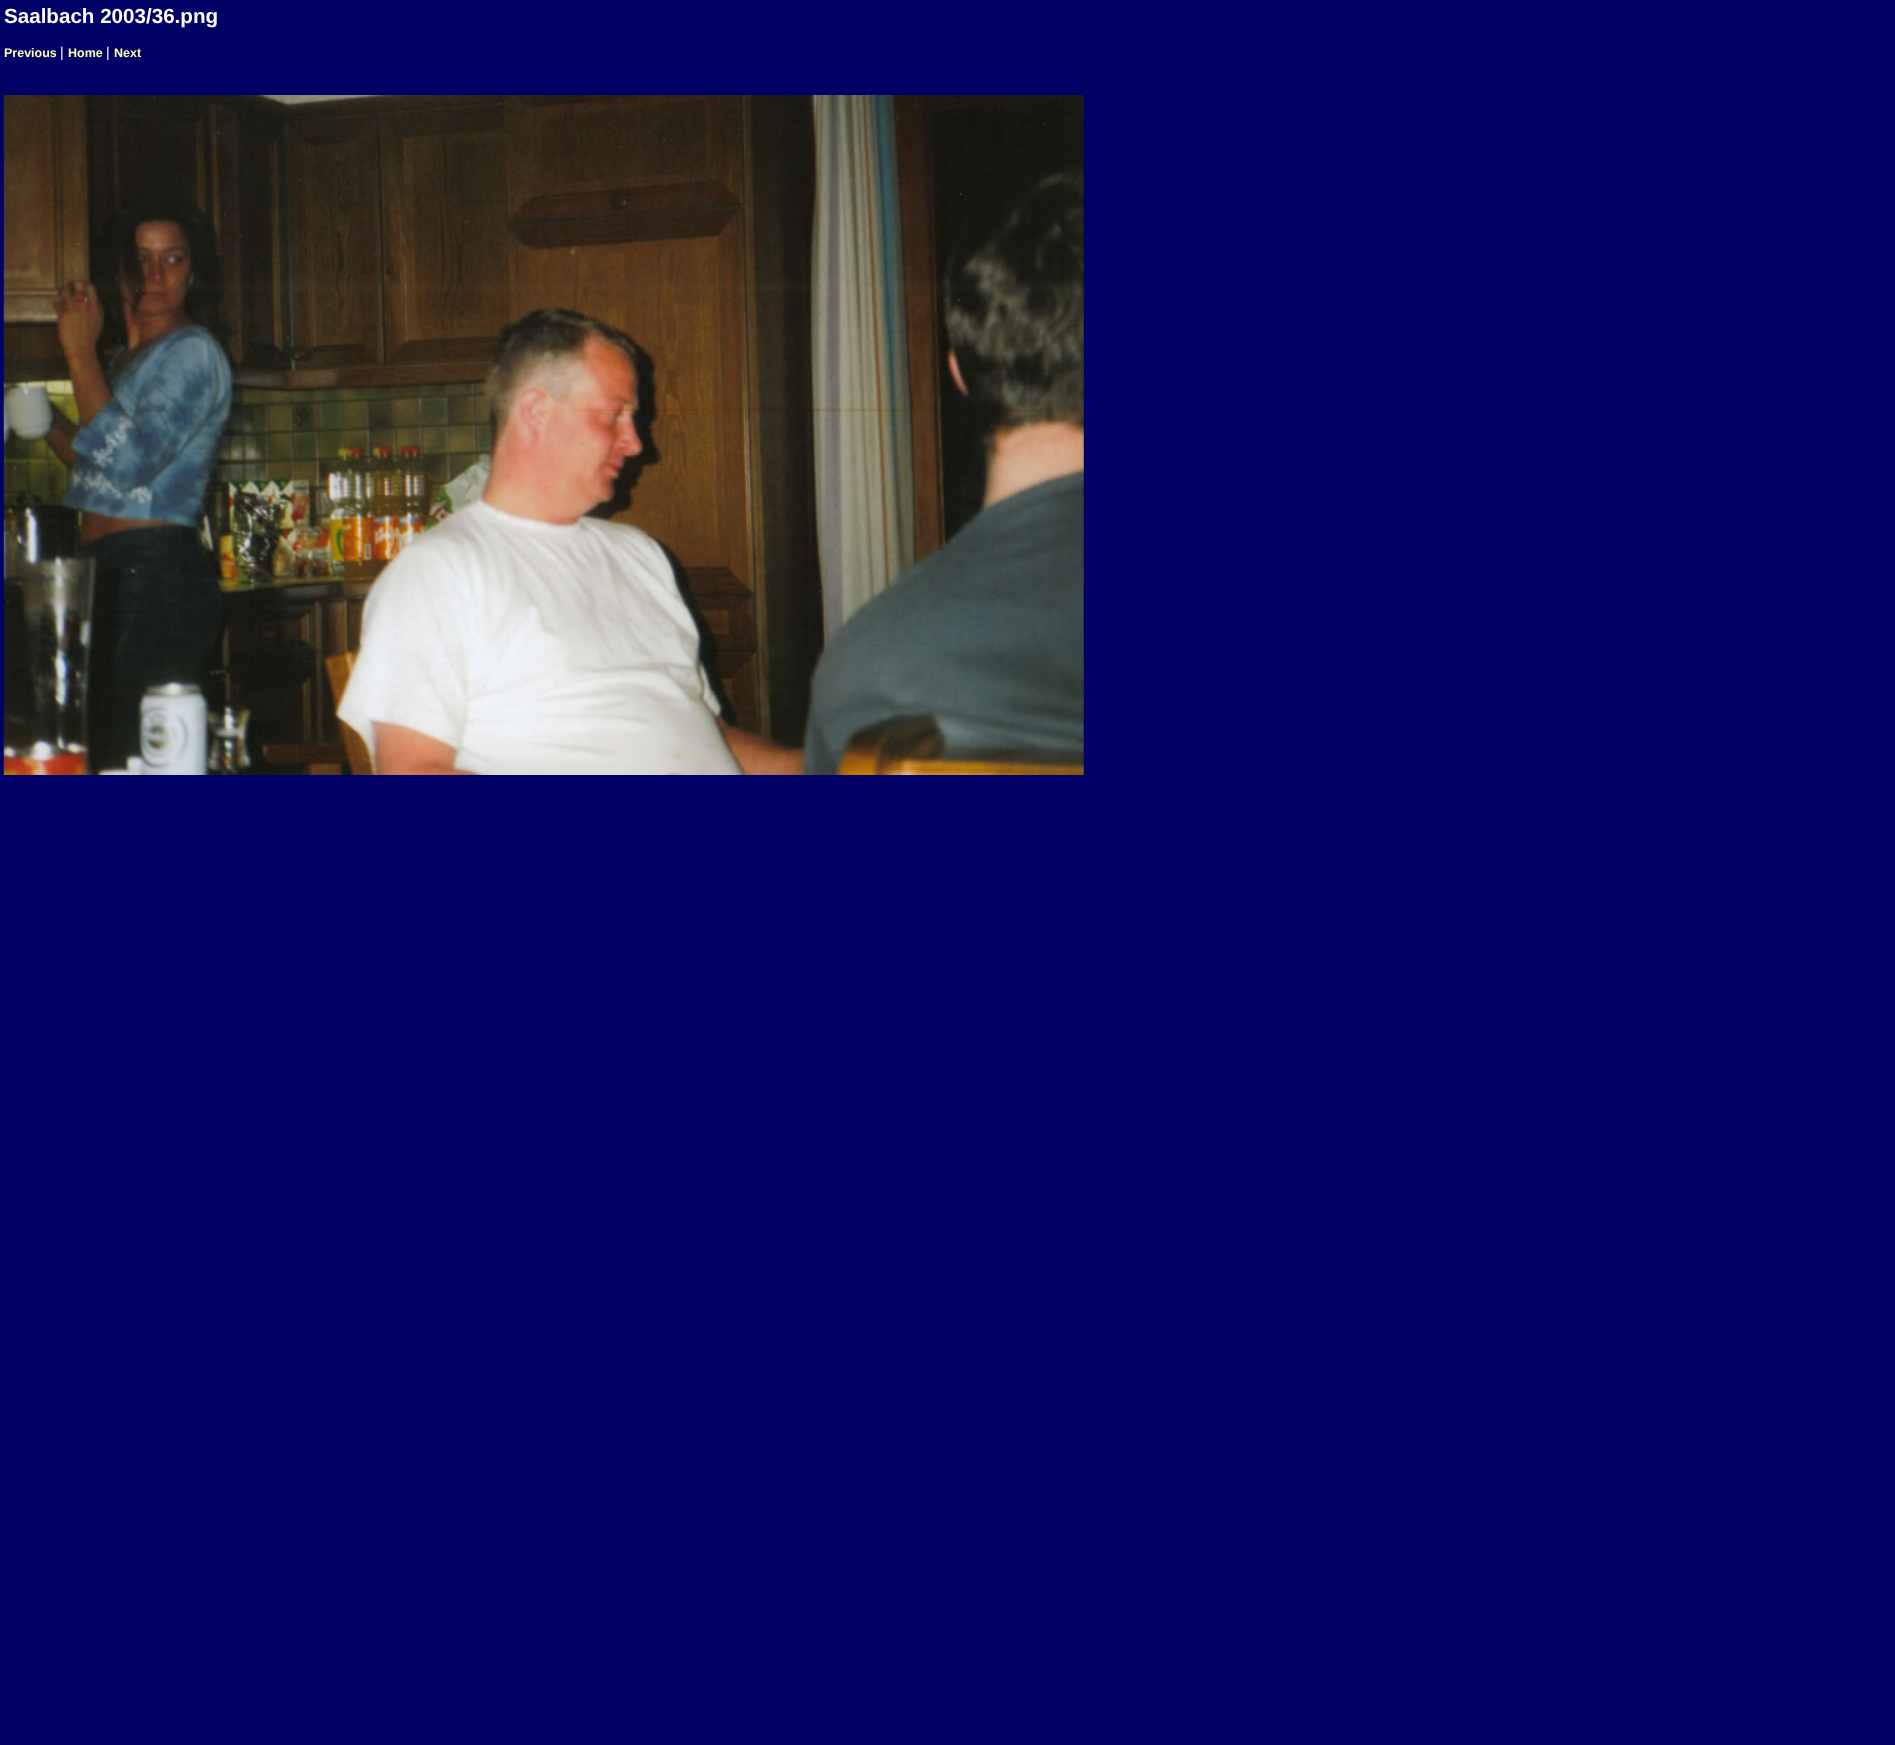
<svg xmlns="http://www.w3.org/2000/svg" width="1895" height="1745">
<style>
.a{font:bold 20.6px Liberation Sans;fill:#fff}
.b{font:bold 12.5px Liberation Sans;fill:#fffdb3}
.c{font:14px Liberation Sans;fill:#fff}
</style>
<rect width="100%" height="100%" fill="#006"/>
<image href="1.png" x="3" y="95" width="1081" height="680"/>
<text class="a" x="4" y="23">Saalbach 2003/36.png</text>
<text class="b" x="4" y="57">Previous</text>
<text class="c" x="60" y="57">|</text>
<text class="b" x="68" y="57">Home</text>
<text class="c" x="106" y="57">|</text>
<text class="b" x="114" y="57">Next</text>
</svg>
